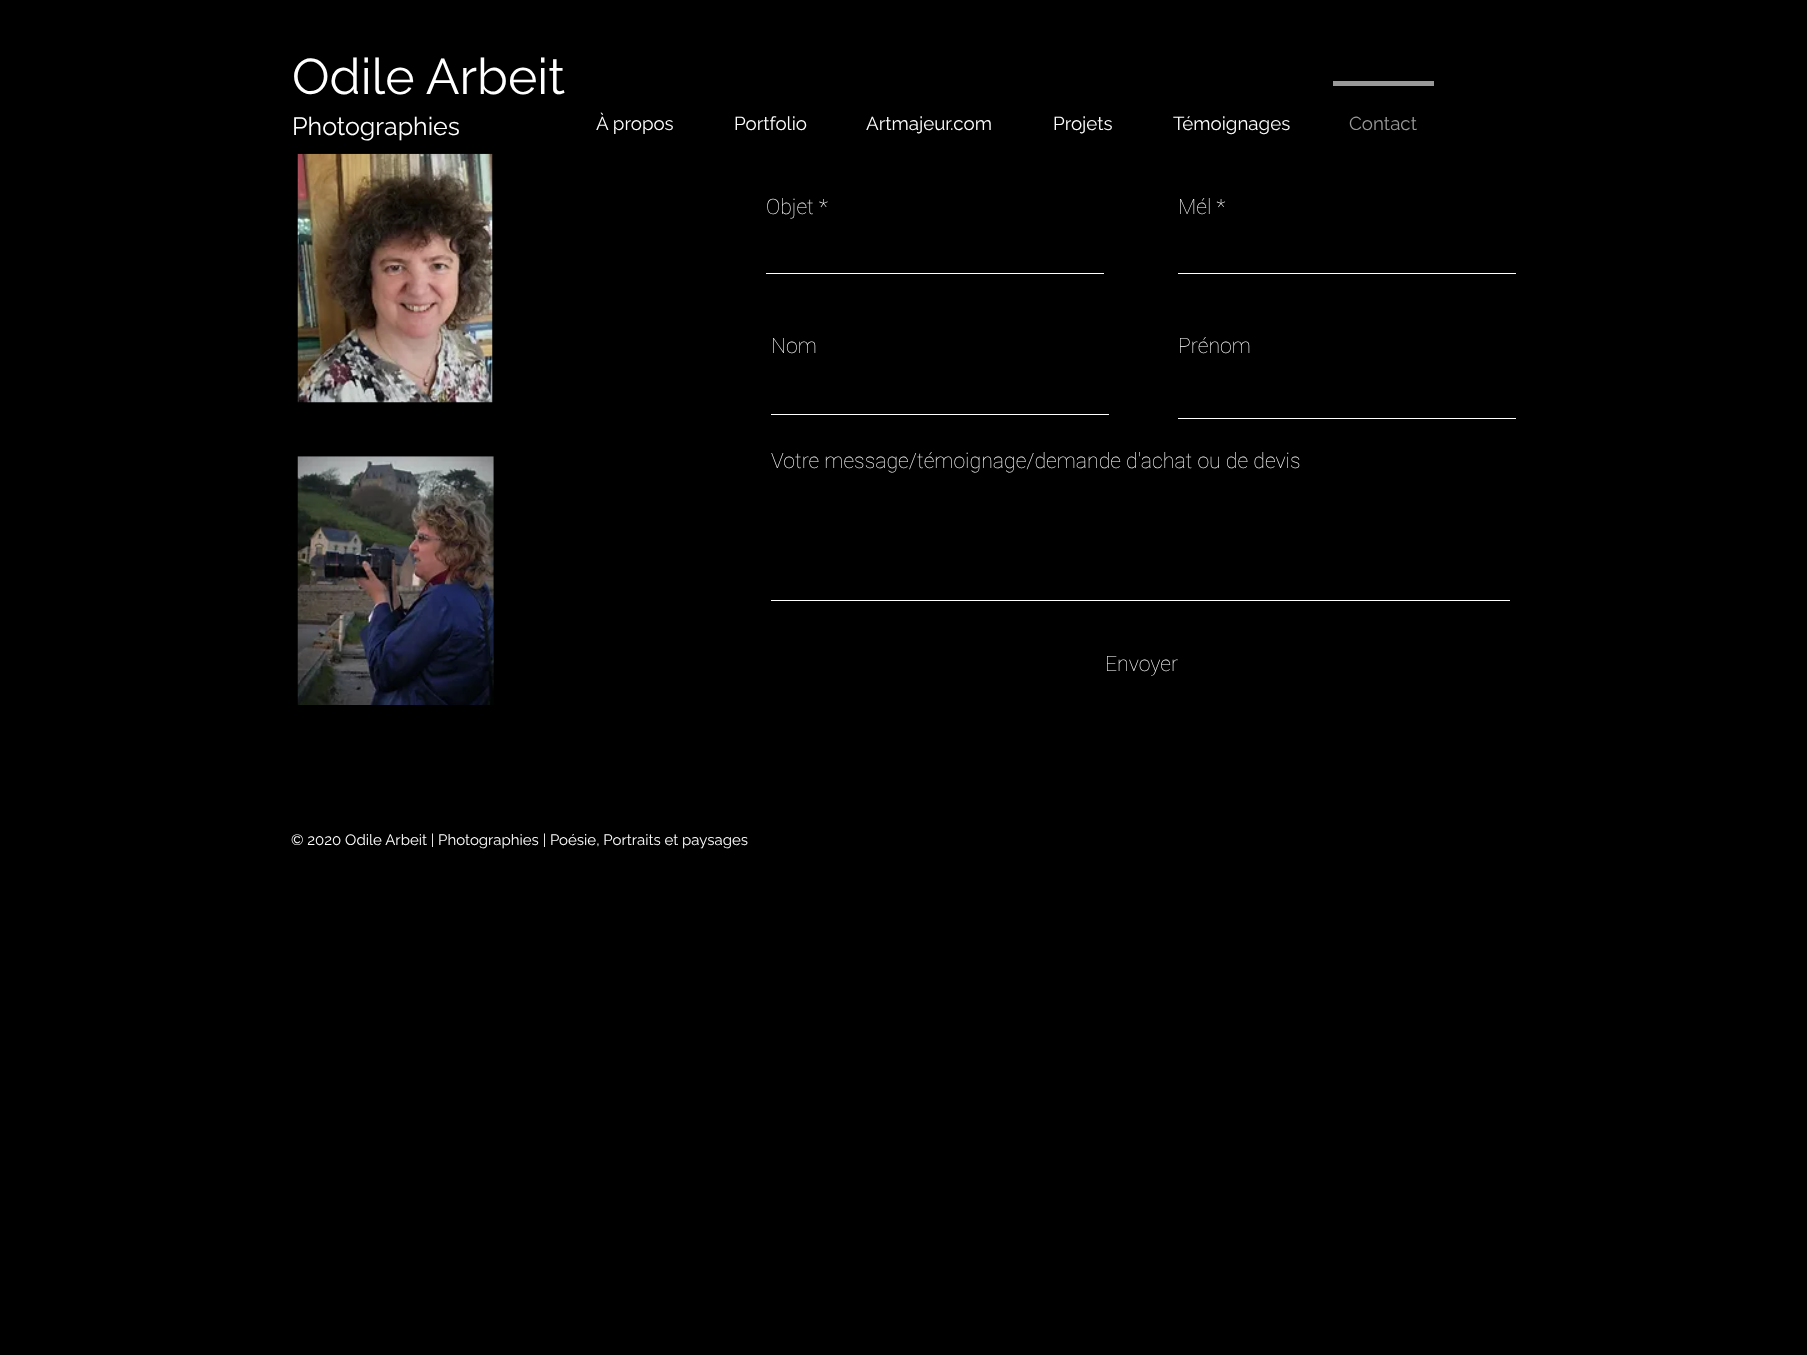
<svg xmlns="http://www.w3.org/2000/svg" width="1807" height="1355">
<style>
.a{font:50px Raleway;fill:#fff}
.b{font:25px Raleway;fill:#fff}
.c{font:18.75px Raleway;fill:#fff}
.d{font:18.75px Raleway;fill:#999}
.e{font:100 21.25px Roboto;fill:#fff}
.f{font:15px Raleway;fill:#fff}
</style>
<rect width="100%" height="100%" fill="#000"/>
<path fill="#999" d="M1333 81h101v5H1333z"/>
<image href="1.png" x="297" y="153" width="196" height="250"/>
<path fill="#fff" d="M766 273h338v1H766z"/>
<path fill="#fff" d="M1178 273h338v1H1178z"/>
<path fill="#fff" d="M771 414h338v1H771z"/>
<path fill="#fff" d="M1178 418h338v1H1178z"/>
<path fill="#fff" d="M771 600h739v1H771z"/>
<image href="2.png" x="297" y="456" width="197" height="249"/>
<text class="a" x="292" y="94">Odile Arbeit</text>
<text class="b" x="292" y="135">Photographies</text>
<text class="c" x="596" y="130">À propos</text>
<text class="c" x="734" y="130">Portfolio</text>
<text class="c" x="866" y="130">Artmajeur.com</text>
<text class="c" x="1053" y="130">Projets</text>
<text class="c" x="1173" y="130">Témoignages</text>
<text class="d" x="1349" y="130">Contact</text>
<text class="e" x="766" y="214">Objet *</text>
<text class="e" x="1178" y="214">Mél *</text>
<text class="e" x="771" y="353">Nom</text>
<text class="e" x="1178" y="353">Prénom</text>
<text class="e" x="771" y="468">Votre message/témoignage/demande d'achat ou de devis</text>
<text class="e" x="1105" y="671">Envoyer</text>
<text class="f" x="291" y="845">© 2020 Odile Arbeit | Photographies | Poésie, Portraits et paysages</text>
</svg>
